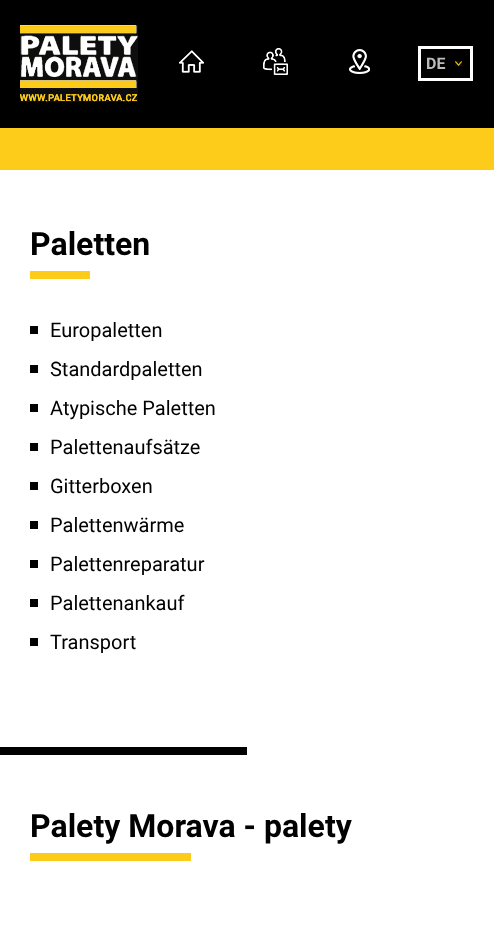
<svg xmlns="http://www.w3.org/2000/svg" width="494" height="931">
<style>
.a{font:bold 16px Roboto;fill:#bbb}
.b{font:bold 32px Roboto;fill:#000}
.c{font:20px Roboto;fill:#000}
</style>
<rect width="100%" height="100%" fill="#fdcb1a"/>
<path fill="#000" d="M0 0h494v128H0z"/>
<image href="1.png" x="20" y="25" width="118" height="77"/>
<image href="2.png" x="179" y="50" width="25" height="23"/>
<image href="3.png" x="263" y="48" width="25" height="27"/>
<image href="4.png" x="349" y="49" width="21" height="25"/>
<image href="5.png" x="455" y="61" width="7" height="5"/>
<path fill="none" stroke="#fff" stroke-width="3" d="M419.5 47.5h52v32H419.5z"/>
<path fill="#fff" d="M0 170h494v761H0z"/>
<path fill="#fdcb1a" d="M30 271h60v8H30z"/>
<path fill="#000" d="M30 326h8v8H30z"/>
<path fill="#000" d="M30 365h8v8H30z"/>
<path fill="#000" d="M30 404h8v8H30z"/>
<path fill="#000" d="M30 443h8v8H30z"/>
<path fill="#000" d="M30 482h8v8H30z"/>
<path fill="#000" d="M30 521h8v8H30z"/>
<path fill="#000" d="M30 560h8v8H30z"/>
<path fill="#000" d="M30 599h8v8H30z"/>
<path fill="#000" d="M30 638h8v8H30z"/>
<path fill="#000" d="M0 747h247v8H0z"/>
<path fill="#fdcb1a" d="M30 853h161v8H30z"/>
<text class="a" x="426" y="69">DE</text>
<text class="b" x="30" y="255">Paletten</text>
<text class="c" x="50" y="337">Europaletten</text>
<text class="c" x="50" y="376">Standardpaletten</text>
<text class="c" x="50" y="415">Atypische Paletten</text>
<text class="c" x="50" y="454">Palettenaufsätze</text>
<text class="c" x="50" y="493">Gitterboxen</text>
<text class="c" x="50" y="532">Palettenwärme</text>
<text class="c" x="50" y="571">Palettenreparatur</text>
<text class="c" x="50" y="610">Palettenankauf</text>
<text class="c" x="50" y="649">Transport</text>
<text class="b" x="30" y="837">Palety Morava - palety</text>
</svg>
